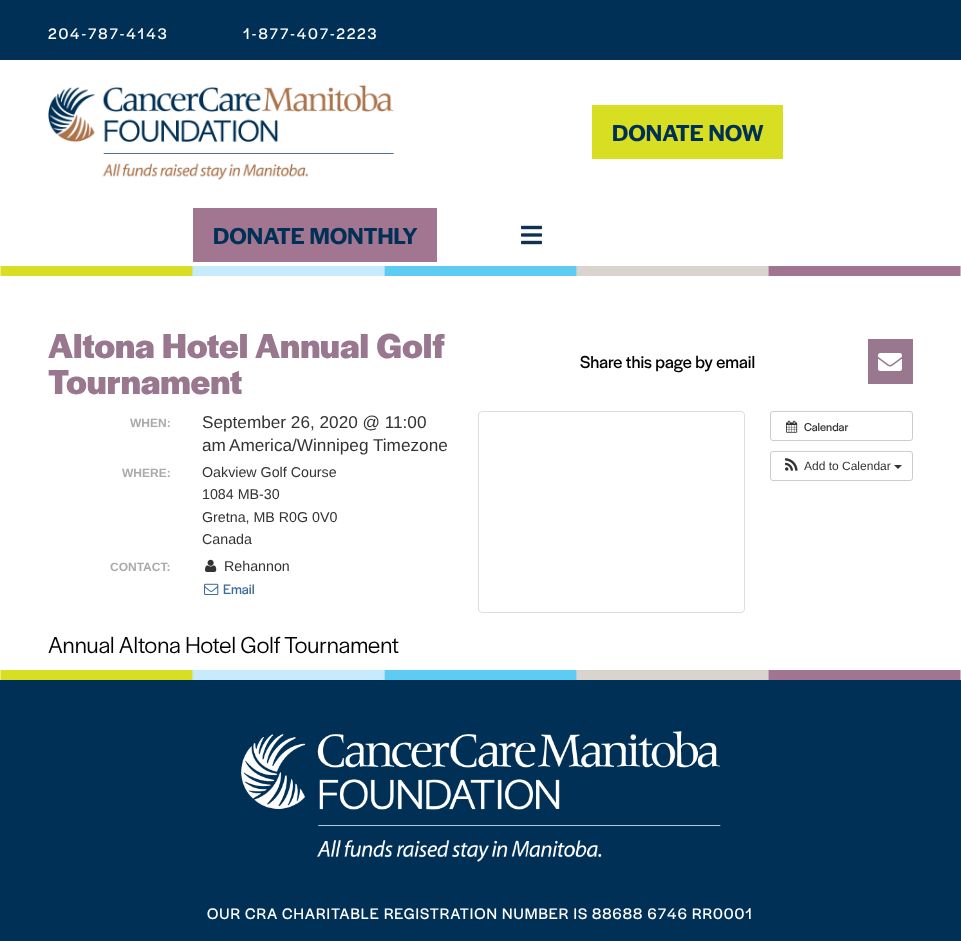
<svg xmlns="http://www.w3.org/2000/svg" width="961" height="941">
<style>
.a{font:16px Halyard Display;letter-spacing:2px;fill:#fff}
.b{font:600 24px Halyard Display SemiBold;fill:#003055}
.c{font:bold 36px Halyard Display;fill:#99778f}
.d{font:18px Halyard Display;fill:#000}
.e{font:bold 12px Liberation Sans;fill:#aaa}
.f{font:17.2px Liberation Sans;fill:#333}
.g{font:14.25px Liberation Sans;fill:#333}
.h{font:14.25px Halyard Display;fill:#3d6b99}
.i{font:12px Halyard Display;fill:#333}
.j{font:12px Liberation Sans;fill:#333}
.k{font:24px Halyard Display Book;fill:#000}
.l{font:16px Halyard Display;letter-spacing:1px;fill:#fff}
</style>
<rect width="100%" height="100%" fill="#fff"/>
<path fill="#003055" d="M0 0h961v60H0z"/>
<image href="1.png" x="48" y="85" width="346" height="95"/>
<path fill="#d8de22" d="M592 105h191v54H592z"/>
<path fill="#a27691" d="M193 208h244v54H193z"/>
<image href="2.png" x="521" y="225" width="21" height="20"/>
<image href="3.png" x="0" y="266" width="961" height="10"/>
<path fill="#99778f" d="M868 339h45v45H868z"/>
<image href="4.png" x="878" y="353" width="24" height="18"/>
<image href="5.png" x="205" y="559" width="12" height="13"/>
<image href="6.png" x="204" y="583" width="15" height="12"/>
<rect fill="none" stroke="#ddd" x="478.5" y="411.5" width="266" height="201" rx="3.5"/>
<rect fill="none" stroke="#ccc" x="770.5" y="411.5" width="142" height="29" rx="2.5"/>
<image href="7.png" x="786" y="420" width="12" height="13"/>
<rect fill="none" stroke="#ccc" x="770.5" y="451.5" width="142" height="29" rx="2.5"/>
<image href="8.png" x="785" y="458" width="13" height="13"/>
<path fill="#333" d="M894 465h8l-4 4z"/>
<image href="3.png" x="0" y="670" width="961" height="10"/>
<path fill="#003055" d="M0 680h961v261H0z"/>
<image href="9.png" x="241" y="731" width="480" height="131"/>
<text class="a" x="48" y="39">204-787-4143</text>
<text class="a" x="243" y="39">1-877-407-2223</text>
<text class="b" x="612" y="141">DONATE NOW</text>
<text class="b" x="213" y="244">DONATE MONTHLY</text>
<text class="c" x="48" y="358">Altona Hotel Annual Golf</text>
<text class="c" x="48" y="394">Tournament</text>
<text class="d" x="580" y="368">Share this page by email</text>
<text class="e" x="130" y="427">WHEN:</text>
<text class="f" x="202" y="428">September 26, 2020 @ 11:00</text>
<text class="f" x="202" y="451">am</text>
<text class="f" x="229" y="451">America/Winnipeg Timezone</text>
<text class="e" x="122" y="477">WHERE:</text>
<text class="g" x="202" y="477">Oakview Golf Course</text>
<text class="g" x="202" y="499">1084 MB-30</text>
<text class="g" x="202" y="522">Gretna, MB R0G 0V0</text>
<text class="g" x="202" y="544">Canada</text>
<text class="e" x="110" y="571">CONTACT:</text>
<text class="g" x="224" y="571">Rehannon</text>
<text class="h" x="223" y="594">Email</text>
<text class="i" x="804" y="431">Calendar</text>
<text class="j" x="804" y="470">Add to Calendar</text>
<text class="k" x="48" y="653">Annual Altona Hotel Golf Tournament</text>
<text class="l" x="207" y="919">OUR CRA CHARITABLE REGISTRATION NUMBER IS 88688 6746 RR0001</text>
</svg>
